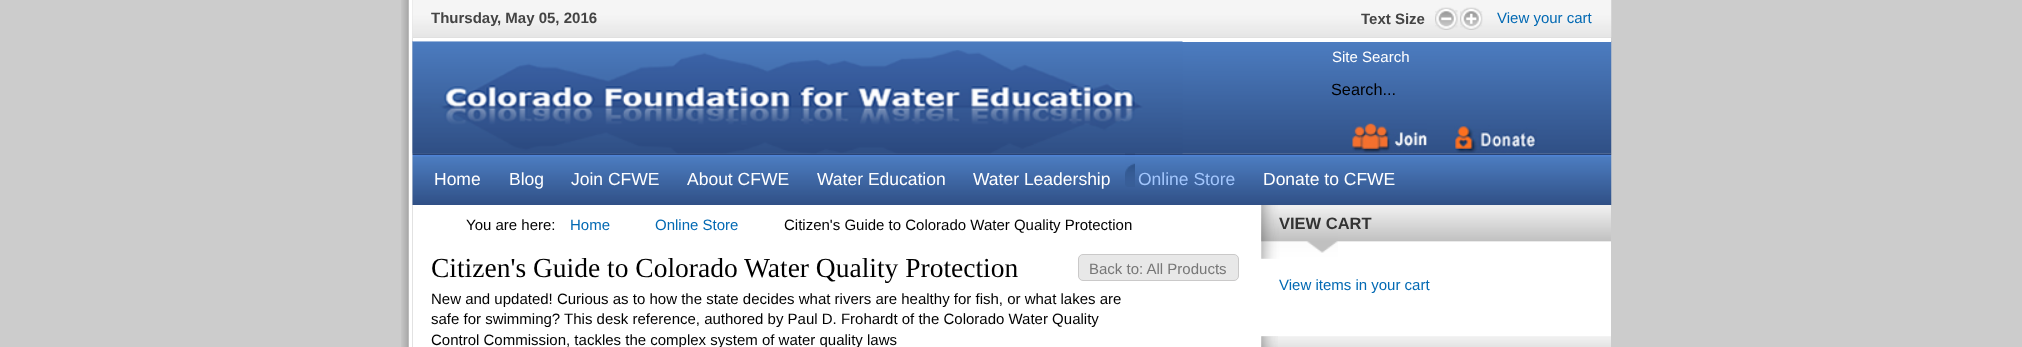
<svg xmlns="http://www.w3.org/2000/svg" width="2022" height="347">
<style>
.a{font:bold 15px Liberation Sans;fill:#444}
.b{font:15px Liberation Sans;fill:#0269b3}
.c{font:15px Liberation Sans;fill:#fff}
.d{font:16.25px Liberation Sans;fill:#000}
.e{font:17.5px Liberation Sans;fill:#fff}
.f{font:17.5px Liberation Sans;fill:#a2c6fd}
.g{font:15px Liberation Sans;fill:#000}
.h{font:27.5px Liberation Serif;fill:#000}
.i{font:15px Liberation Sans;fill:#777}
.j{font:bold 16.5px Liberation Sans;fill:#333}
</style>
<defs>
<clipPath id="clip1"><path d="M431 8h1162v22H431z"/></clipPath>
</defs>
<rect width="100%" height="100%" fill="#ccc"/>
<image href="1.png" x="401" y="0" width="13" height="347"/>
<path fill="#dbdbdb" d="M413 37h1198v1H413z"/>
<image href="2.png" x="412" y="0" width="1200" height="38"/>
<image href="3.png" x="1435" y="7" width="23" height="23"/>
<image href="4.png" x="1460" y="7" width="23" height="23"/>
<image href="9.png" x="412" y="153" width="1200" height="52"/>
<image href="5.png" x="412" y="41" width="1200" height="113"/>
<path fill="#fff" d="M413 38h1198v4H413z"/>
<image href="6.png" x="412" y="41" width="771" height="113"/>
<image href="7.png" x="1352" y="123" width="75" height="30"/>
<image href="8.png" x="1454" y="125" width="83" height="28"/>
<image href="10.png" x="1125" y="153" width="10" height="34"/>
<path fill="#fff" d="M413 205h1198v142H413z"/>
<rect fill="#e8e8e8" stroke="#cac9c9" x="1078.5" y="254.5" width="160" height="26" rx="4.5"/>
<image href="11.png" x="1261" y="205" width="350" height="37"/>
<image href="12.png" x="1261" y="205" width="77" height="54"/>
<image href="13.png" x="1261" y="336" width="350" height="11"/>
<image href="14.png" x="1261" y="336" width="17" height="11"/>
<g clip-path="url(#clip1)">
<text class="a" x="431" y="23">Thursday</text>
</g>
<text class="a" x="497" y="23">, May 05, 2016</text>
<text class="a" x="1361" y="24">Text Size</text>
<text class="b" x="1497" y="23">View your cart</text>
<text class="c" x="1332" y="62">Site Search</text>
<text class="d" x="1331" y="95">Search...</text>
<text class="e" x="434" y="185">Home</text>
<text class="e" x="509" y="185">Blog</text>
<text class="e" x="571" y="185">Join CFWE</text>
<text class="e" x="687" y="185">About CFWE</text>
<text class="e" x="817" y="185">Water Education</text>
<text class="e" x="973" y="185">Water Leadership</text>
<text class="f" x="1138" y="185">Online Store</text>
<text class="e" x="1263" y="185">Donate to CFWE</text>
<text class="g" x="466" y="230">You are here:</text>
<text class="b" x="570" y="230">Home</text>
<text class="b" x="655" y="230">Online Store</text>
<text class="g" x="784" y="230">Citizen's Guide to Colorado Water Quality Protection</text>
<text class="h" x="431" y="277">Citizen's Guide to Colorado Water Quality Protection</text>
<text class="i" x="1089" y="274">Back to: All Products</text>
<text class="g" x="431" y="304">New and updated! Curious as to how the state decides what rivers are healthy for fish, or what lakes are</text>
<text class="g" x="431" y="324">safe for swimming? This desk reference, authored by Paul D. Frohardt of the Colorado Water Quality</text>
<text class="g" x="431" y="345">Control Commission, tackles the complex system of water quality laws</text>
<text class="j" x="1279" y="229">VIEW CART</text>
<text class="b" x="1279" y="290">View items in your cart</text>
</svg>
